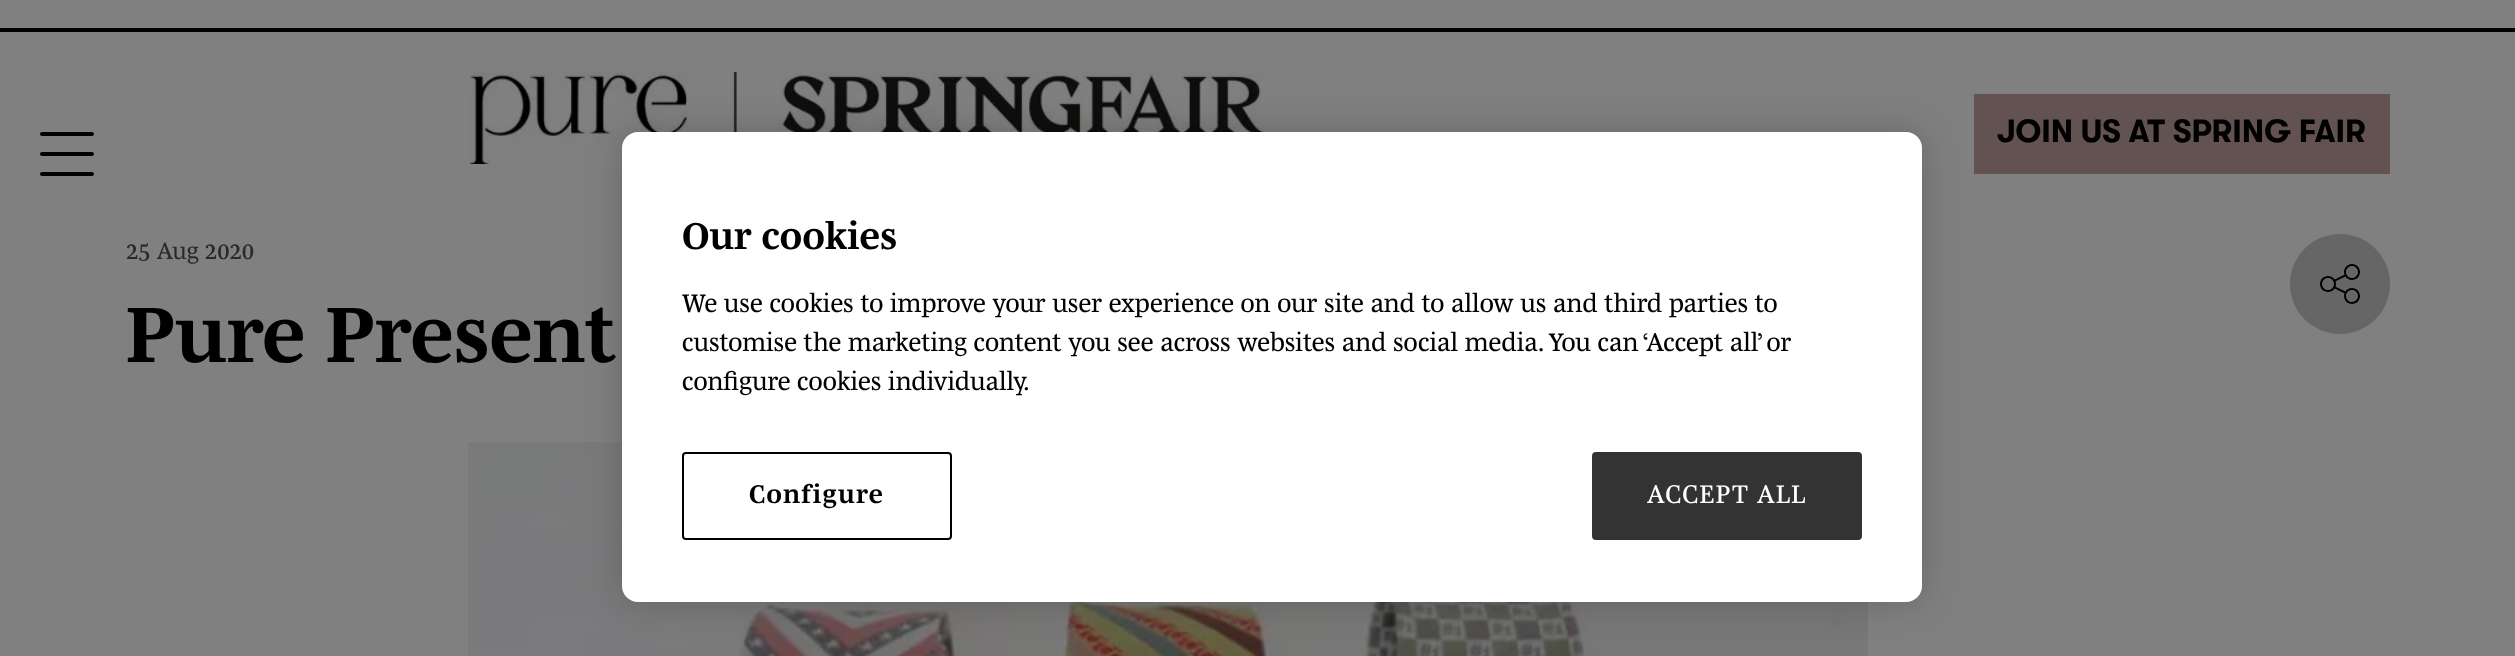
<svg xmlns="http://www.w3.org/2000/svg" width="2515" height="656">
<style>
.a{font:bold 32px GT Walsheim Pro;fill:#000}
.b{font:24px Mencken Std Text;fill:#2a2a2a}
.c{font:bold 80px Mencken Std Text;fill:#000}
.d{font:bold 38px Mencken Std Text;fill:#000}
.e{font:26px Mencken Std Text;fill:#000}
.f{font:bold 26px Mencken Std Text;letter-spacing:1.25px;fill:#000}
.g{font:26px Mencken Std Text;letter-spacing:1.25px;fill:#fff}
</style>
<rect width="100%" height="100%" fill="#808080"/>
<path fill="#000" d="M0 28h2515v4H0z"/>
<rect fill="#000" x="40" y="152" width="54" height="4" rx="2"/>
<rect fill="#000" x="40" y="132" width="54" height="4" rx="2"/>
<rect fill="#000" x="40" y="172" width="54" height="4" rx="2"/>
<image href="1.png" x="470" y="72" width="796" height="92"/>
<path fill="#635252" d="M1974 94h416v80H1974z"/>
<circle fill="#666" cx="2340" cy="284" r="50"/>
<image href="2.png" x="2320" y="264" width="40" height="40"/>
<image href="3.png" x="468" y="442" width="1400" height="214"/>
<rect fill="#00000033" filter="blur(18px)" x="622" y="132" width="1300" height="470" rx="16"/>
<rect fill="#fff" x="622" y="132" width="1300" height="470" rx="16"/>
<rect fill="none" stroke="#000" stroke-width="2" x="683" y="453" width="268" height="86" rx="3"/>
<rect fill="#333" stroke="#333" stroke-width="2" x="1593" y="453" width="268" height="86" rx="3"/>
<text class="a" x="1997" y="142">JOIN US AT SPRING FAIR</text>
<text class="b" x="126" y="259">25 Aug 2020</text>
<text class="c" x="126" y="362">Pure Present</text>
<text class="d" x="682" y="249">Our cookies</text>
<text class="e" x="682" y="312">We use cookies to improve your user experience on our site and to allow us and third parties to</text>
<text class="e" x="682" y="351">customise the marketing content you see across websites and social media. You can ‘Accept all’ or</text>
<text class="e" x="682" y="390">configure cookies individually.</text>
<text class="f" x="749" y="503">Configure</text>
<text class="g" x="1647" y="503">ACCEPT ALL</text>
</svg>
